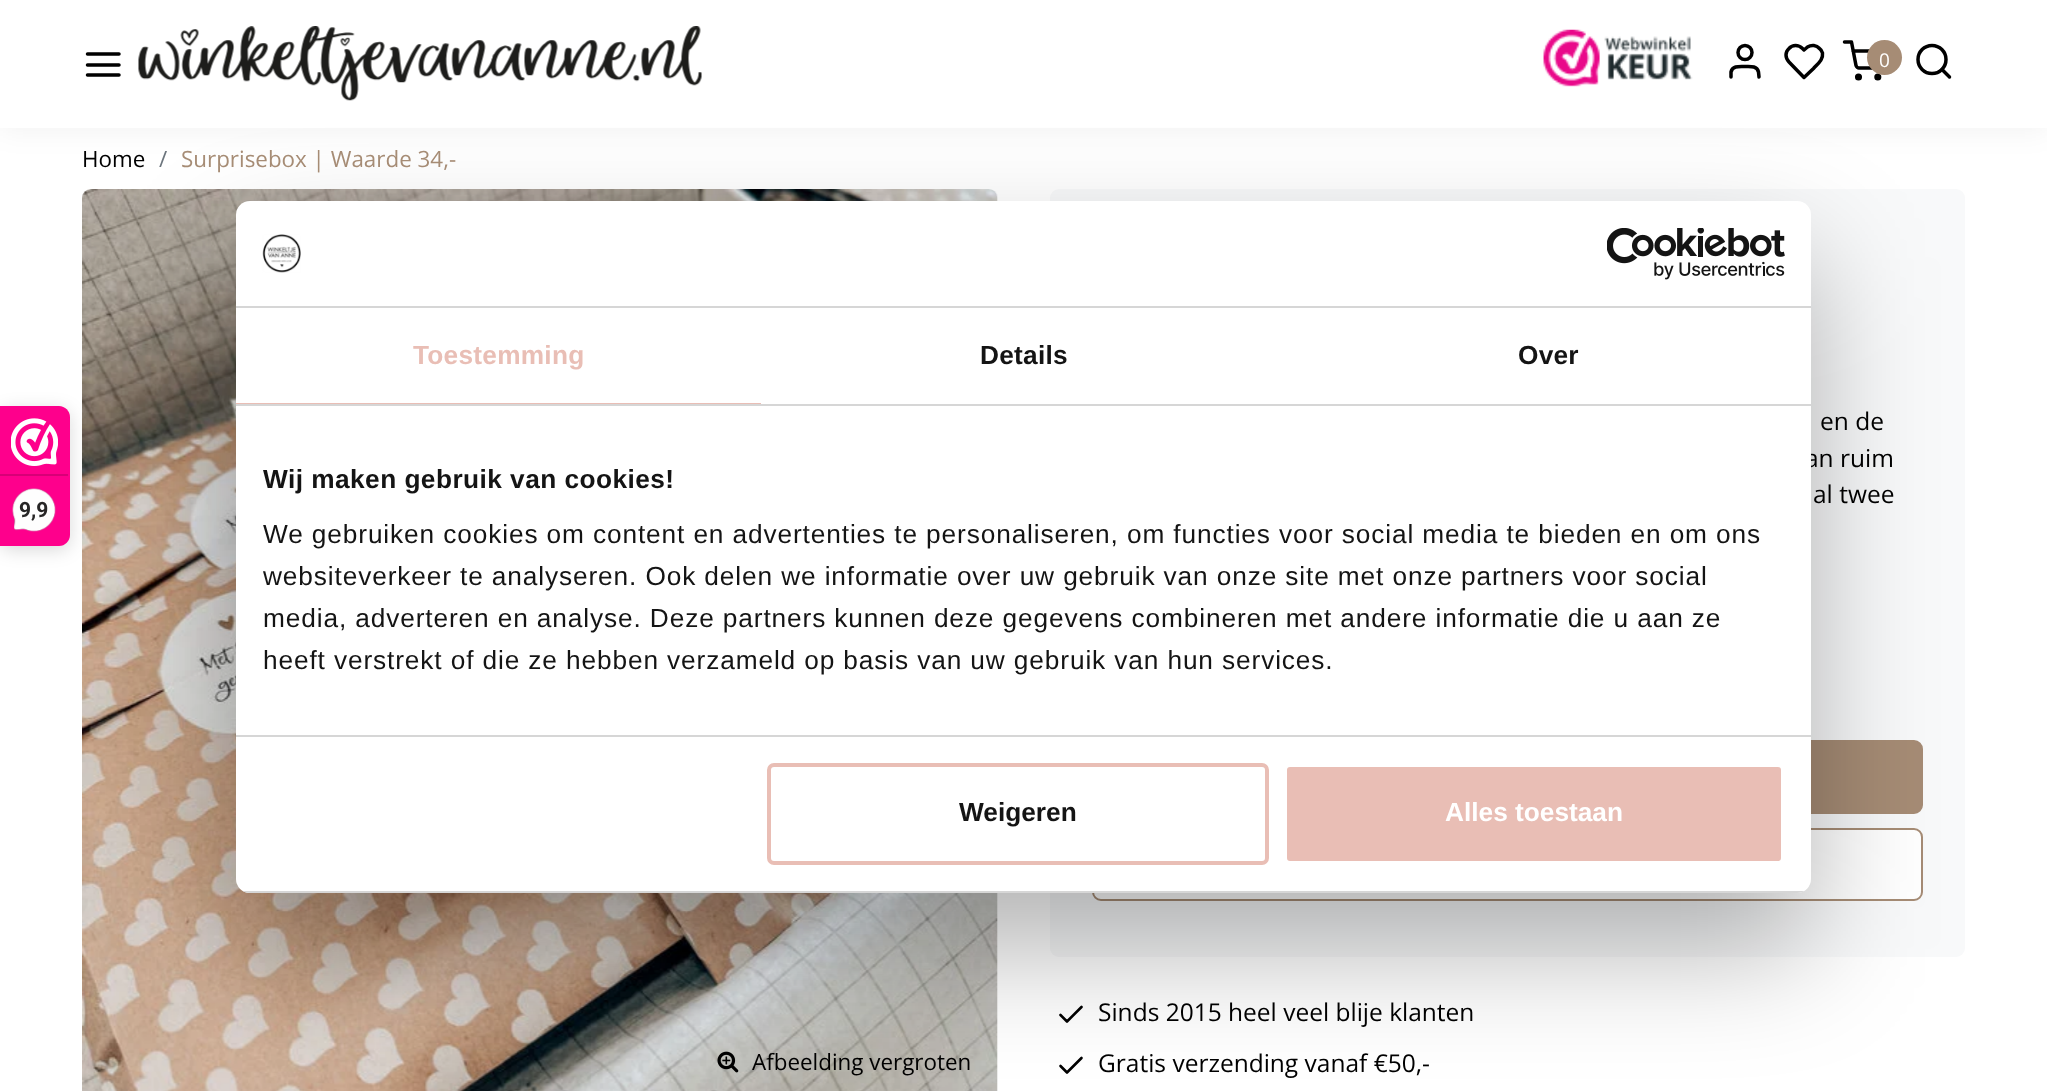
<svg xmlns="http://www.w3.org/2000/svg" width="2047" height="1091">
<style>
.a{font:19px Open Sans;fill:#fff}
.b{font:22.4px Open Sans;fill:#000}
.c{font:22.4px Open Sans;fill:#6c757d}
.d{font:22.4px Open Sans;fill:#a68c75}
.e{font:24.5px Open Sans;fill:#000}
.f{font:bold 21px Roboto;fill:#272626}
.g{font:bold 26.25px Liberation Sans;letter-spacing:0.25px;fill:#e9beb5}
.h{font:bold 26.25px Liberation Sans;letter-spacing:0.25px;fill:#141414}
.i{font:bold 26.25px Liberation Sans;letter-spacing:0.45px;fill:#141414}
.j{font:26.25px Liberation Sans;letter-spacing:0.88px;fill:#141414}
.k{font:bold 26.25px Liberation Sans;fill:#141414}
.l{font:bold 26.25px Liberation Sans;fill:#fff}
</style>
<defs>
<clipPath id="clip1"><rect x="236" y="201" width="1575" height="692" rx="14"/></clipPath>
</defs>
<rect width="100%" height="100%" fill="#fff"/>
<path fill="#0000000d" filter="blur(14px)" d="M0 4h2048v127H0z"/>
<path fill="#fff" d="M0 0h2047v128H0z"/>
<path fill="none" stroke="#000" stroke-width="3.5" stroke-linecap="round" stroke-linejoin="round" d="M87.5 65h31.5m-31.5-11h31.5m-31.5 21h31.5"/>
<image href="1.png" x="138" y="26" width="564" height="75"/>
<image href="2.png" x="1543" y="29" width="150" height="58"/>
<path fill="none" stroke="#000" stroke-width="3.5" stroke-linecap="round" stroke-linejoin="round" d="M1759 77l-.5-5c-1.5-6.5-8.5-5.5-13.5-5.5c-5.5 0-12.5-1-14 5.5v5"/>
<circle fill="none" stroke="#000" stroke-width="3.5" cx="1745" cy="52.5" r="7"/>
<path fill="none" stroke="#000" stroke-width="3.5" stroke-linecap="round" stroke-linejoin="round" d="M1819.5 48.5c-3-3.5-8-4-12-1.5l-3.5 3l-1.5-1.5c-4-4-10-4-13.5 0c-4 3.5-4 9.5 0 13.5l15 15.5l9.5-9c4-4.5 10-8.5 9-15.5c-.5-1.5-1.5-3.5-3-4.5z"/>
<circle fill="none" stroke="#000" stroke-width="3.5" cx="1858.5" cy="77" r="1.8"/>
<circle fill="none" stroke="#000" stroke-width="3.5" cx="1877.8" cy="77" r="1.8"/>
<path fill="none" stroke="#000" stroke-width="3.5" stroke-linecap="round" stroke-linejoin="round" d="M1844.5 42h7l4.5 23.5c.5 1.5 2 3 3.5 2.5h17c2 .5 3.5-1 3.5-2.5l3-14.5h-30"/>
<circle fill="#a68c75" cx="1884.5" cy="57.5" r="17.5"/>
<circle fill="none" stroke="#000" stroke-width="3.5" cx="1932" cy="59.5" r="14"/>
<path fill="none" stroke="#000" stroke-width="3.5" stroke-linecap="round" stroke-linejoin="round" d="M1949.5 77l-7.5-7.5"/>
<image href="3.png" x="82" y="189" width="916" height="902"/>
<image href="4.png" x="717" y="1051" width="22" height="22"/>
<rect fill="#f8f9fa" x="1050" y="189" width="915" height="768" rx="9"/>
<rect fill="#a68c75" stroke="#a68c75" stroke-width="2" x="1093" y="741" width="829" height="72" rx="8"/>
<rect fill="#fff" stroke="#a68c75" stroke-width="2" x="1093" y="829" width="829" height="71" rx="8"/>
<path fill="none" stroke="#000" stroke-width="2.6" stroke-linecap="round" stroke-linejoin="round" d="M1081.5 1007l-14.5 14.5l-6.5-6.5"/>
<path fill="none" stroke="#000" stroke-width="2.6" stroke-linecap="round" stroke-linejoin="round" d="M1081.5 1058l-14.5 14.5l-6.5-6.5"/>
<rect fill="#00000026" filter="blur(9px)" y="410" width="70" height="140" rx="11"/>
<rect fill="#0000004d" filter="blur(59.5px)" x="236" y="257" width="1575" height="692" rx="14"/>
<path fill="#fe008c" d="M0 406h59c6 0 11 5 11 11v118c0 6-5 11-11 11h-59z"/>
<image href="5.png" x="11" y="418" width="47" height="48"/>
<path fill="#d80077" d="M0 474h68v2H0z"/>
<image href="6.png" x="12" y="488" width="44" height="44"/>
<text class="a" x="1879" y="67">0</text>
<text class="b" x="82" y="167">Home</text>
<text class="c" x="159" y="167">/</text>
<text class="d" x="181" y="167">Surprisebox | Waarde 34,-</text>
<text class="b" x="752" y="1070">Afbeelding vergroten</text>
<text class="e" x="1820" y="430">en de</text>
<text class="e" x="1805" y="467">an ruim</text>
<text class="e" x="1813" y="503">al twee</text>
<text class="e" x="1098" y="1021">Sinds 2015 heel veel blije klanten</text>
<text class="e" x="1098" y="1072">Gratis verzending vanaf €50,-</text>
<text class="f" x="19" y="517">9,9</text>
<rect fill="#fff" x="236" y="201" width="1575" height="692" rx="14"/>
<path fill="#d6d6d6" d="M236 306h1575v2H236z"/>
<image href="7.png" x="262" y="234" width="39" height="39"/>
<image href="8.png" x="1607" y="228" width="178" height="52"/>
<path fill="#d6d6d6" d="M236 404h1575v2H236z"/>
<path fill="#e9beb5" d="M236 403h525v1H236z"/>
<text class="g" x="413" y="364">Toestemming</text>
<text class="h" x="980" y="364">Details</text>
<text class="h" x="1518" y="364">Over</text>
<path fill="#d6d6d6" d="M236 735h1575v2H236z"/>
<text class="i" x="263" y="488">Wij maken gebruik van cookies!</text>
<text class="j" x="263" y="543">We gebruiken cookies om content en advertenties te personaliseren, om functies voor social media te bieden en om ons</text>
<text class="j" x="263" y="585">websiteverkeer te analyseren. Ook delen we informatie over uw gebruik van onze site met onze partners voor social</text>
<text class="j" x="263" y="627">media, adverteren en analyse. Deze partners kunnen deze gegevens combineren met andere informatie die u aan ze</text>
<text class="j" x="263" y="669">heeft verstrekt of die ze hebben verzameld op basis van uw gebruik van hun services.</text>
<g clip-path="url(#clip1)">
<path fill="#d6d6d6" d="M236 891h1575v2H236z"/>
</g>
<rect fill="none" stroke="#e9beb5" stroke-width="4" x="769" y="765" width="498" height="98" rx="5"/>
<text class="k" x="959" y="821">Weigeren</text>
<rect fill="#e9beb5" stroke="#fff" stroke-width="4" x="1285" y="765" width="498" height="98" rx="5"/>
<text class="l" x="1445" y="821">Alles toestaan</text>
</svg>
